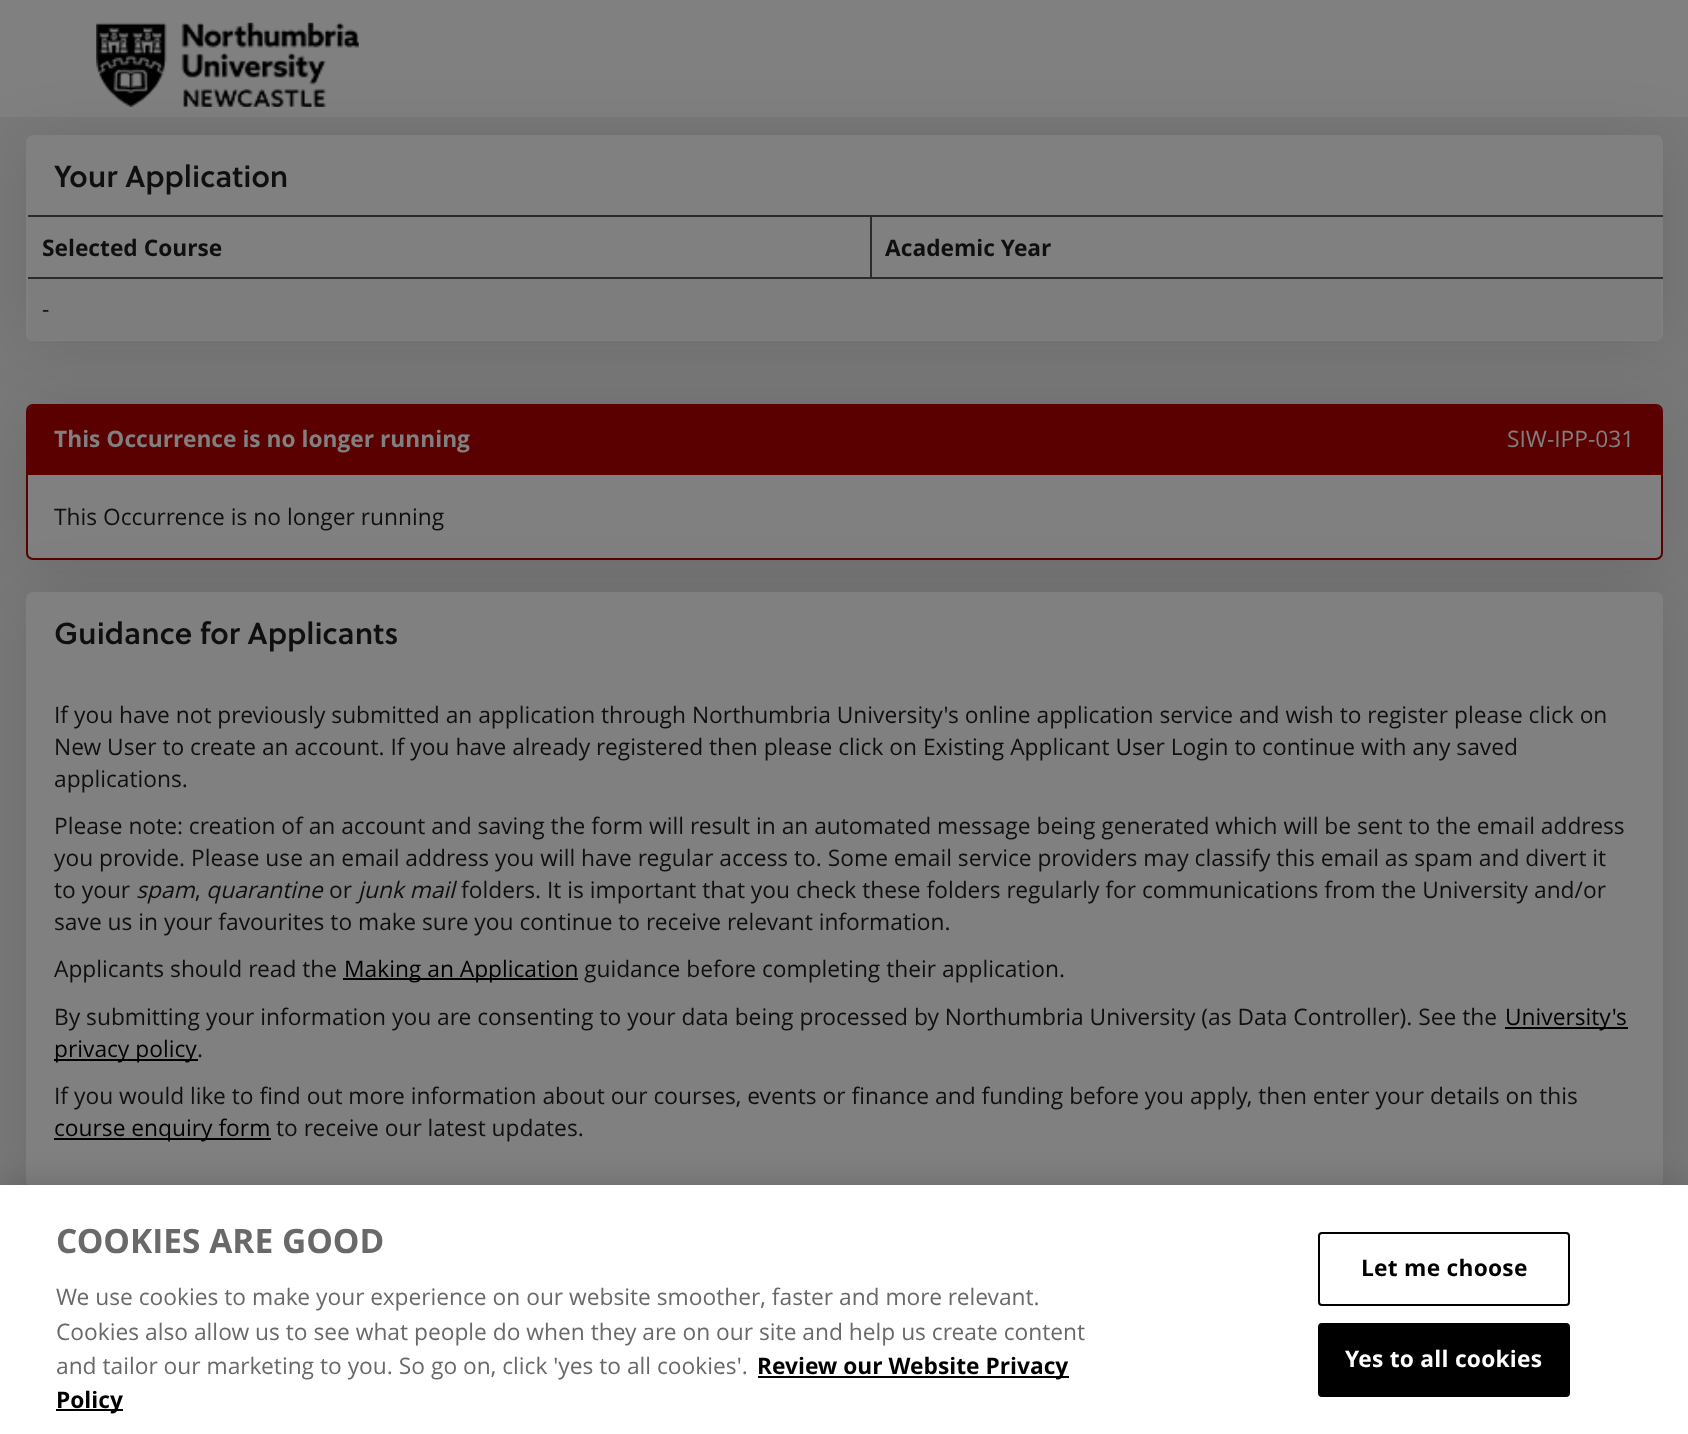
<svg xmlns="http://www.w3.org/2000/svg" width="1688" height="1434">
<style>
.a{font:600 30.25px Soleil;fill:#0f0f0f}
.b{font:bold 22.75px Open Sans;fill:#0f0f0f}
.c{font:22.75px Open Sans;fill:#0f0f0f}
.d{font:bold 22.75px Open Sans;fill:#808080}
.e{font:22.75px Open Sans;fill:#808080}
.f{font:italic 22.75px Open Sans;fill:#0f0f0f}
.g{font:22.75px Open Sans;fill:#000}
.h{font:bold 33.5px Open Sans;fill:#696969}
.i{font:22.75px Open Sans;fill:#696969}
.j{font:bold 22.75px Open Sans;fill:#000}
.k{font:bold 22.75px Open Sans;letter-spacing:0.25px;fill:#000}
.l{font:bold 22.75px Open Sans;letter-spacing:0.25px;fill:#fff}
</style>
<rect width="100%" height="100%" fill="#797979"/>
<path fill="#808080" d="M0 0h1688v117H0z"/>
<image href="1.png" x="96" y="22" width="263" height="85"/>
<rect fill="#0000001a" filter="blur(30px)" x="26" y="408" width="1637" height="156" rx="7"/>
<rect fill="#808080" stroke="#5a0000" stroke-width="2" x="27" y="405" width="1635" height="154" rx="6"/>
<path fill="#5a0000" d="M33 406h1623c3 0 5 2 5 5v63h-1633v-63c0-3 2-5 5-5z"/>
<rect fill="#0000001a" filter="blur(30px)" x="26" y="138" width="1637" height="207" rx="7"/>
<rect fill="#808080" stroke="#808080" stroke-width="2" x="27" y="136" width="1635" height="204" rx="6"/>
<path fill="#2b2b2b" d="M28 215h1635v2H28z"/>
<path fill="#7d7d7d" d="M28 278h1633v57c0 3-2 5-5 5h-1623c-3 0-5-2-5-5z"/>
<path fill="#2b2b2b" d="M870 277h793v2H870z"/>
<path fill="#2b2b2b" d="M870 215h2v63H870z"/>
<path fill="#2b2b2b" d="M28 277h844v2H28z"/>
<path fill="#5a0000" d="M28 474h1633v1H28z"/>
<rect fill="#0000001a" filter="blur(30px)" x="26" y="595" width="1637" height="595" rx="7"/>
<rect fill="#808080" stroke="#808080" stroke-width="2" x="27" y="593" width="1635" height="593" rx="6"/>
<path fill="#000" d="M343 978h235v2H343z"/>
<path fill="#000" d="M1505 1027h123v2H1505z"/>
<path fill="#000" d="M54 1059h144v2H54z"/>
<path fill="#000" d="M54 1138h217v2H54z"/>
<path fill="#00000033" filter="blur(16px)" d="M0 1185h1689v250H0z"/>
<path fill="#fff" d="M0 1185h1688v249H0z"/>
<path fill="#000" d="M758 1376h311v2H758z"/>
<path fill="#000" d="M56 1409h67v2H56z"/>
<rect fill="none" stroke="#000" stroke-width="2" x="1319" y="1233" width="250" height="72" rx="3"/>
<rect fill="#000" stroke="#000" stroke-width="2" x="1319" y="1324" width="250" height="72" rx="3"/>
<text class="a" x="54" y="187">Your Application</text>
<text class="b" x="42" y="256">Selected Course</text>
<text class="b" x="885" y="256">Academic Year</text>
<text class="c" x="42" y="317">-</text>
<text class="d" x="54" y="447">This Occurrence is no longer running</text>
<text class="e" x="1507" y="447">SIW-IPP-031</text>
<text class="c" x="54" y="525">This Occurrence is no longer running</text>
<text class="a" x="54" y="644">Guidance for Applicants</text>
<text class="c" x="54" y="723">If you have not previously submitted an application through Northumbria University's online application service and wish to register please click on</text>
<text class="c" x="54" y="755">New User to create an account. If you have already registered then please click on Existing Applicant User Login to continue with any saved</text>
<text class="c" x="54" y="787">applications.</text>
<text class="c" x="54" y="834">Please note: creation of an account and saving the form will result in an automated message being generated which will be sent to the email address</text>
<text class="c" x="54" y="866">you provide. Please use an email address you will have regular access to. Some email service providers may classify this email as spam and divert it</text>
<text class="c" x="54" y="898">to your</text>
<text class="f" x="136" y="898">spam</text>
<text class="c" x="195" y="898">,</text>
<text class="f" x="206" y="898">quarantine</text>
<text class="c" x="329" y="898">or</text>
<text class="f" x="358" y="898">junk mail</text>
<text class="c" x="461" y="898">folders. It is important that you check these folders regularly for communications from the University and/or</text>
<text class="c" x="54" y="930">save us in your favourites to make sure you continue to receive relevant information.</text>
<text class="c" x="54" y="977">Applicants should read the</text>
<text class="g" x="344" y="977">Making an Application</text>
<text class="c" x="584" y="977">guidance before completing their application.</text>
<text class="c" x="54" y="1025">By submitting your information you are consenting to your data being processed by Northumbria University (as Data Controller). See the</text>
<text class="g" x="1505" y="1025">University's</text>
<text class="g" x="54" y="1057">privacy policy</text>
<text class="c" x="197" y="1057">.</text>
<text class="c" x="54" y="1104">If you would like to find out more information about our courses, events or finance and funding before you apply, then enter your details on this</text>
<text class="g" x="54" y="1136">course enquiry form</text>
<text class="c" x="276" y="1136">to receive our latest updates.</text>
<text class="h" x="56" y="1253">COOKIES ARE GOOD</text>
<text class="i" x="56" y="1305">We use cookies to make your experience on our website smoother, faster and more relevant.</text>
<text class="i" x="56" y="1340">Cookies also allow us to see what people do when they are on our site and help us create content</text>
<text class="i" x="56" y="1374">and tailor our marketing to you. So go on, click 'yes to all cookies'.</text>
<text class="j" x="757" y="1374">Review our Website Privacy</text>
<text class="j" x="56" y="1408">Policy</text>
<text class="k" x="1361" y="1276">Let me choose</text>
<text class="l" x="1345" y="1367">Yes to all cookies</text>
</svg>
